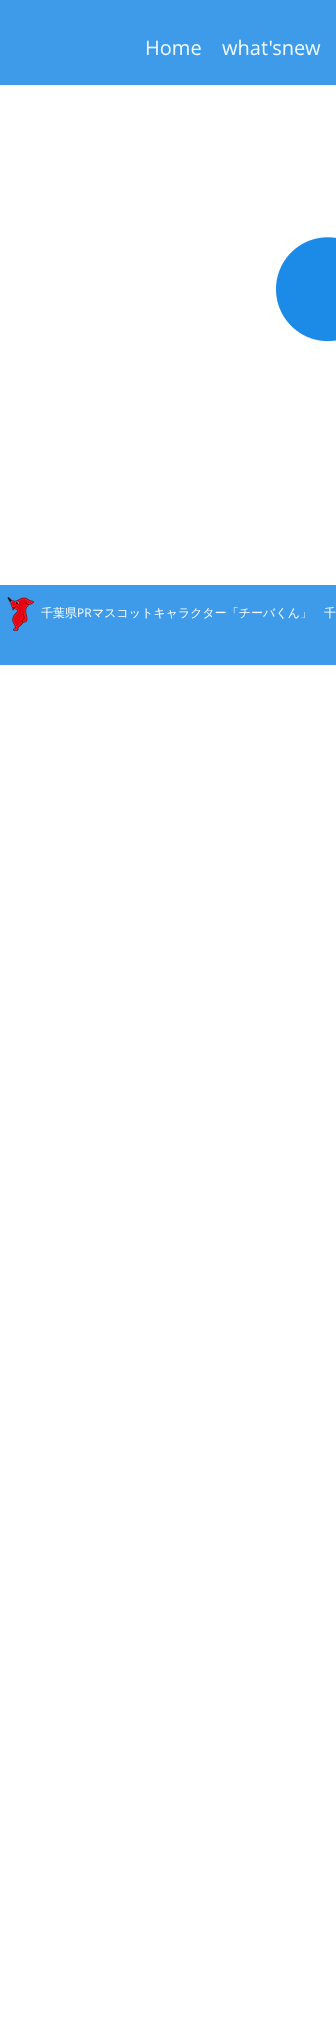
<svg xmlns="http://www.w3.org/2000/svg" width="336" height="2029">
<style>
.a{font:20px Open Sans;fill:#f0faff}
.b{font:500 12px WenQuanYi Zen Hei;fill:#fff}
.c{font:12px Open Sans;fill:#fff}
</style>
<rect width="100%" height="100%" fill="#fff"/>
<path fill="#3d9be9" d="M0 0h336v85H0z"/>
<image href="1.png" x="276" y="237" width="60" height="105"/>
<path fill="#3d9be9" d="M0 585h336v80H0z"/>
<image href="2.png" x="7" y="597" width="27" height="34"/>
<text class="a" x="145" y="55">Home</text>
<text class="a" x="222" y="55">what'snew</text>
<text class="b" x="41" y="617">千葉県</text>
<text class="c" x="77" y="617">PR</text>
<text class="b" x="92" y="617">マスコットキャラクター「チーバくん」　千</text>
</svg>
